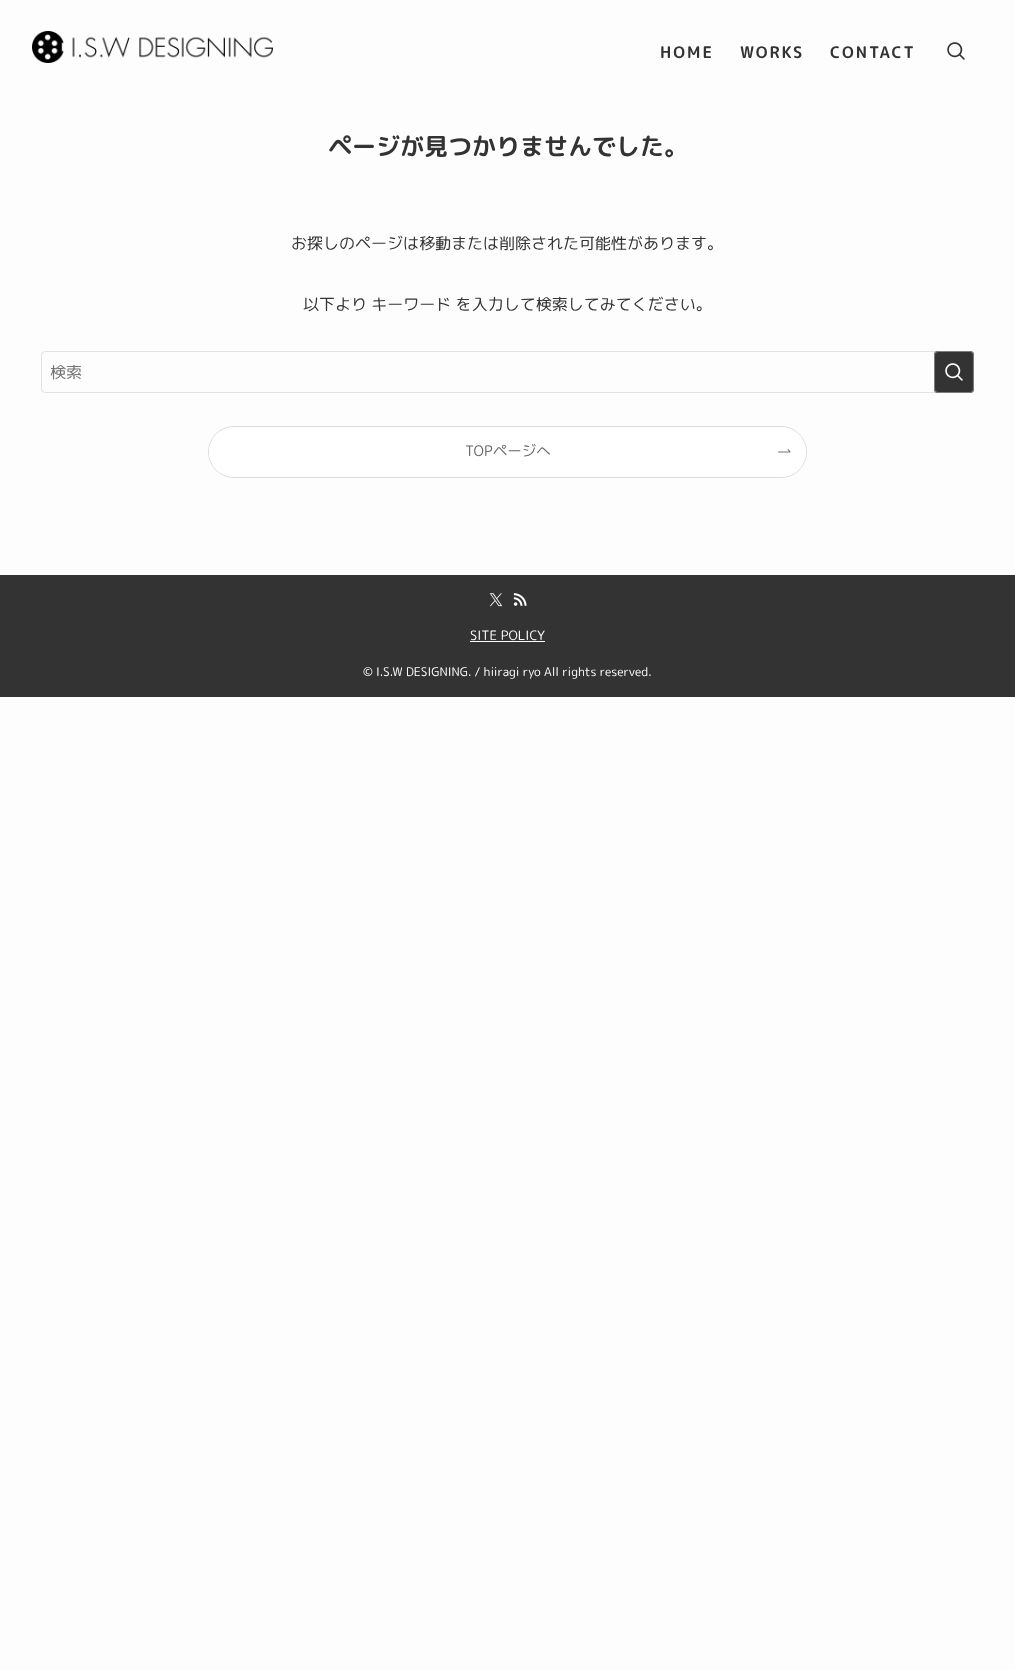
<svg xmlns="http://www.w3.org/2000/svg" width="1015" height="1670">
<style>
.a{font:bold 16px 'Rounded Mplus 1c Bold';letter-spacing:2px;fill:#333}
.b{font:bold 24px 'Rounded Mplus 1c Bold';fill:#333}
.c{font:16px 'Rounded Mplus 1c';fill:#333}
.d{font:16px 'Rounded Mplus 1c';fill:#757575}
.e{font:14.5px 'Rounded Mplus 1c';fill:#666}
.f{font:13px 'Rounded Mplus 1c';fill:#fff}
.g{font:12px 'Rounded Mplus 1c';fill:#fff}
</style>
<rect width="100%" height="100%" fill="#fdfdfd"/>
<image href="1.png" x="32" y="31" width="241" height="32"/>
<image href="2.png" x="947" y="42" width="18" height="18"/>
<rect fill="none" stroke="#e3e3e3" x="41.5" y="351.5" width="932" height="41" rx="3.5"/>
<rect fill="#333" x="934" y="351" width="40" height="42" rx="4"/>
<rect fill="none" stroke="#c7c7c780" x="934.5" y="351.5" width="39" height="41" rx="3.5"/>
<image href="3.png" x="945" y="363" width="18" height="18"/>
<rect fill="none" stroke="#dcdcdc" x="208.5" y="426.5" width="598" height="51" rx="25.5"/>
<rect fill="#fff" x="209" y="427" width="597" height="50" rx="25"/>
<image href="4.png" x="778" y="449" width="13" height="4"/>
<path fill="#333" d="M0 575h1015v122H0z"/>
<image href="5.png" x="489" y="593" width="14" height="14"/>
<image href="6.png" x="513" y="593" width="14" height="13"/>
<path fill="#fff" d="M470 641h75v1H470z"/>
<text class="a" x="660" y="58">HOME</text>
<text class="a" x="740" y="58">WORKS</text>
<text class="a" x="830" y="58">CONTACT</text>
<text class="b" x="328" y="155">ページが見つかりませんでした。</text>
<text class="c" x="291" y="249">お探しのページは移動または削除された可能性があります。</text>
<text class="c" x="303" y="310">以下より キーワード を入力して検索してみてください。</text>
<text class="d" x="50" y="378">検索</text>
<text class="e" x="465" y="456">TOPページへ</text>
<text class="f" x="470" y="640">SITE POLICY</text>
<text class="g" x="363" y="676">© I.S.W DESIGNING. / hiiragi ryo All rights reserved.</text>
</svg>
